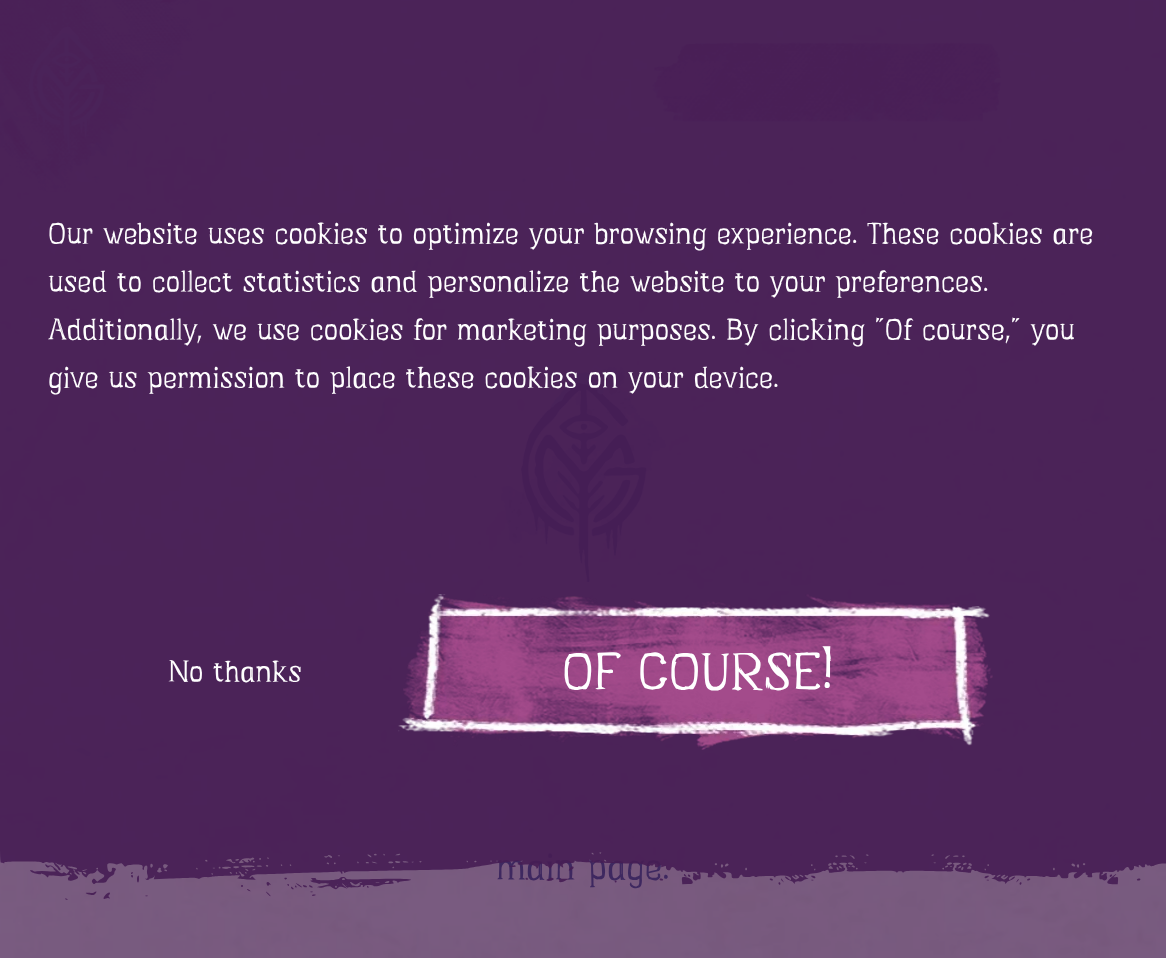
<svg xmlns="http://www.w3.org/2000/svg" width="1166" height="958">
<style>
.a{font:40px 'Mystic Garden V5';fill:#3e2860}
.b{font:56px 'Mystic Garden V5';fill:#fff}
.c{font:32px 'Mystic Garden V5';fill:#fff}
</style>
<rect width="100%" height="100%" fill="#fff"/>
<image href="1.png" x="0" y="0" width="1166" height="958"/>
<image href="2.png" x="0" y="0" width="199" height="192"/>
<image href="3.png" x="652" y="42" width="349" height="80"/>
<image href="6.png" x="501" y="367" width="165" height="215"/>
<text class="a" x="496" y="880">main page.</text>
<image href="4.png" x="0" y="0" width="1166" height="900"/>
<image href="5.png" x="398" y="594" width="595" height="156"/>
<text class="b" x="562" y="690">OF COURSE!</text>
<text class="c" x="168" y="682">No thanks</text>
<text class="c" x="48" y="388">give us permission to place these cookies on your device.</text>
<text class="c" x="48" y="340">Additionally, we use cookies for marketing purposes. By clicking "Of course," you</text>
<text class="c" x="48" y="292">used to collect statistics and personalize the website to your preferences.</text>
<text class="c" x="48" y="244">Our website uses cookies to optimize your browsing experience. These cookies are</text>
</svg>
